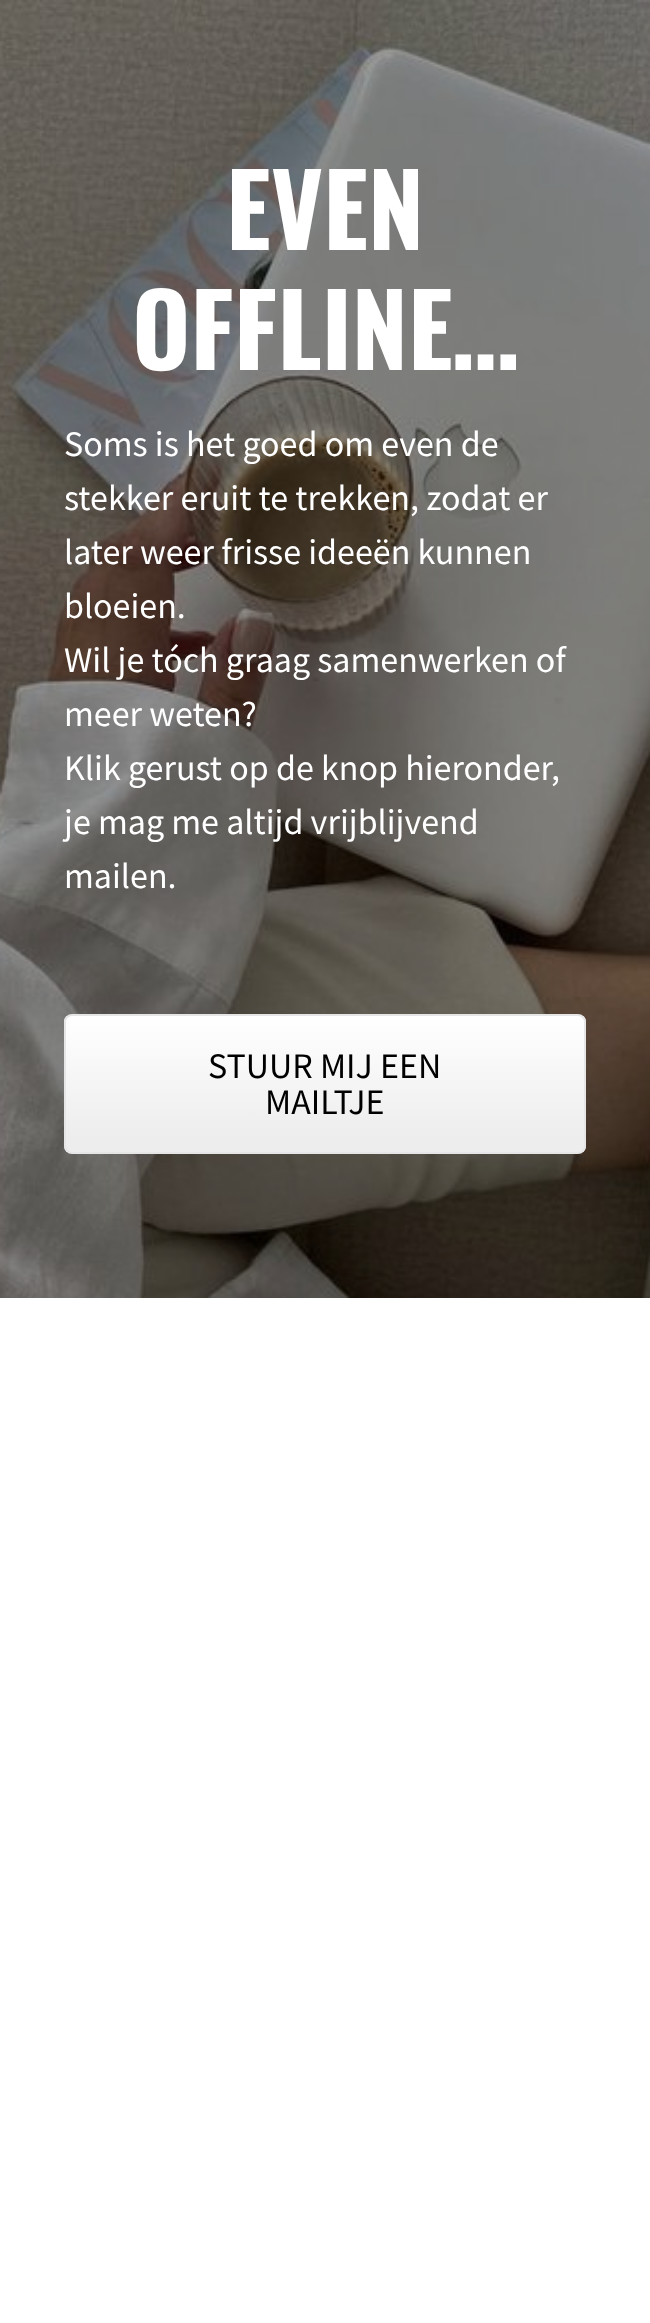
<svg xmlns="http://www.w3.org/2000/svg" width="650" height="2323">
<style>
.a{font:bold 100px Oswald;fill:#fff}
.b{font:36px Source Sans Pro;fill:#fff}
.c{font:36px Source Sans Pro;fill:#000}
</style>
<defs>
<clipPath id="clip1"><rect x="64" y="1014" width="522" height="140" rx="8"/></clipPath>
<linearGradient id="g1" gradientUnits="userSpaceOnUse" x1="325" y1="1016" x2="325" y2="1152"><stop offset="0" stop-color="#fff"/><stop offset="0.9" stop-color="#ededed"/></linearGradient>
</defs>
<rect width="100%" height="100%" fill="#fff"/>
<image href="1.png" x="0" y="0" width="650" height="1298"/>
<g clip-path="url(#clip1)">
<path fill="url(#g1)" d="M64 1016h522v136H64z"/>
</g>
<rect fill="none" stroke="#e6e6e6" stroke-width="2" x="65" y="1015" width="520" height="138" rx="7"/>
<text class="a" x="226" y="250">EVEN</text>
<text class="a" x="132" y="370">OFFLINE…</text>
<text class="b" x="64" y="456">Soms is het goed om even de</text>
<text class="b" x="64" y="510">stekker eruit te trekken, zodat er</text>
<text class="b" x="64" y="564">later weer frisse ideeën kunnen</text>
<text class="b" x="64" y="618">bloeien.</text>
<text class="b" x="64" y="672">Wil je tóch graag samenwerken of</text>
<text class="b" x="64" y="726">meer weten?</text>
<text class="b" x="64" y="780">Klik gerust op de knop hieronder,</text>
<text class="b" x="64" y="834">je mag me altijd vrijblijvend</text>
<text class="b" x="64" y="888">mailen.</text>
<text class="c" x="208" y="1078">STUUR MIJ EEN</text>
<text class="c" x="265" y="1114">MAILTJE</text>
</svg>
